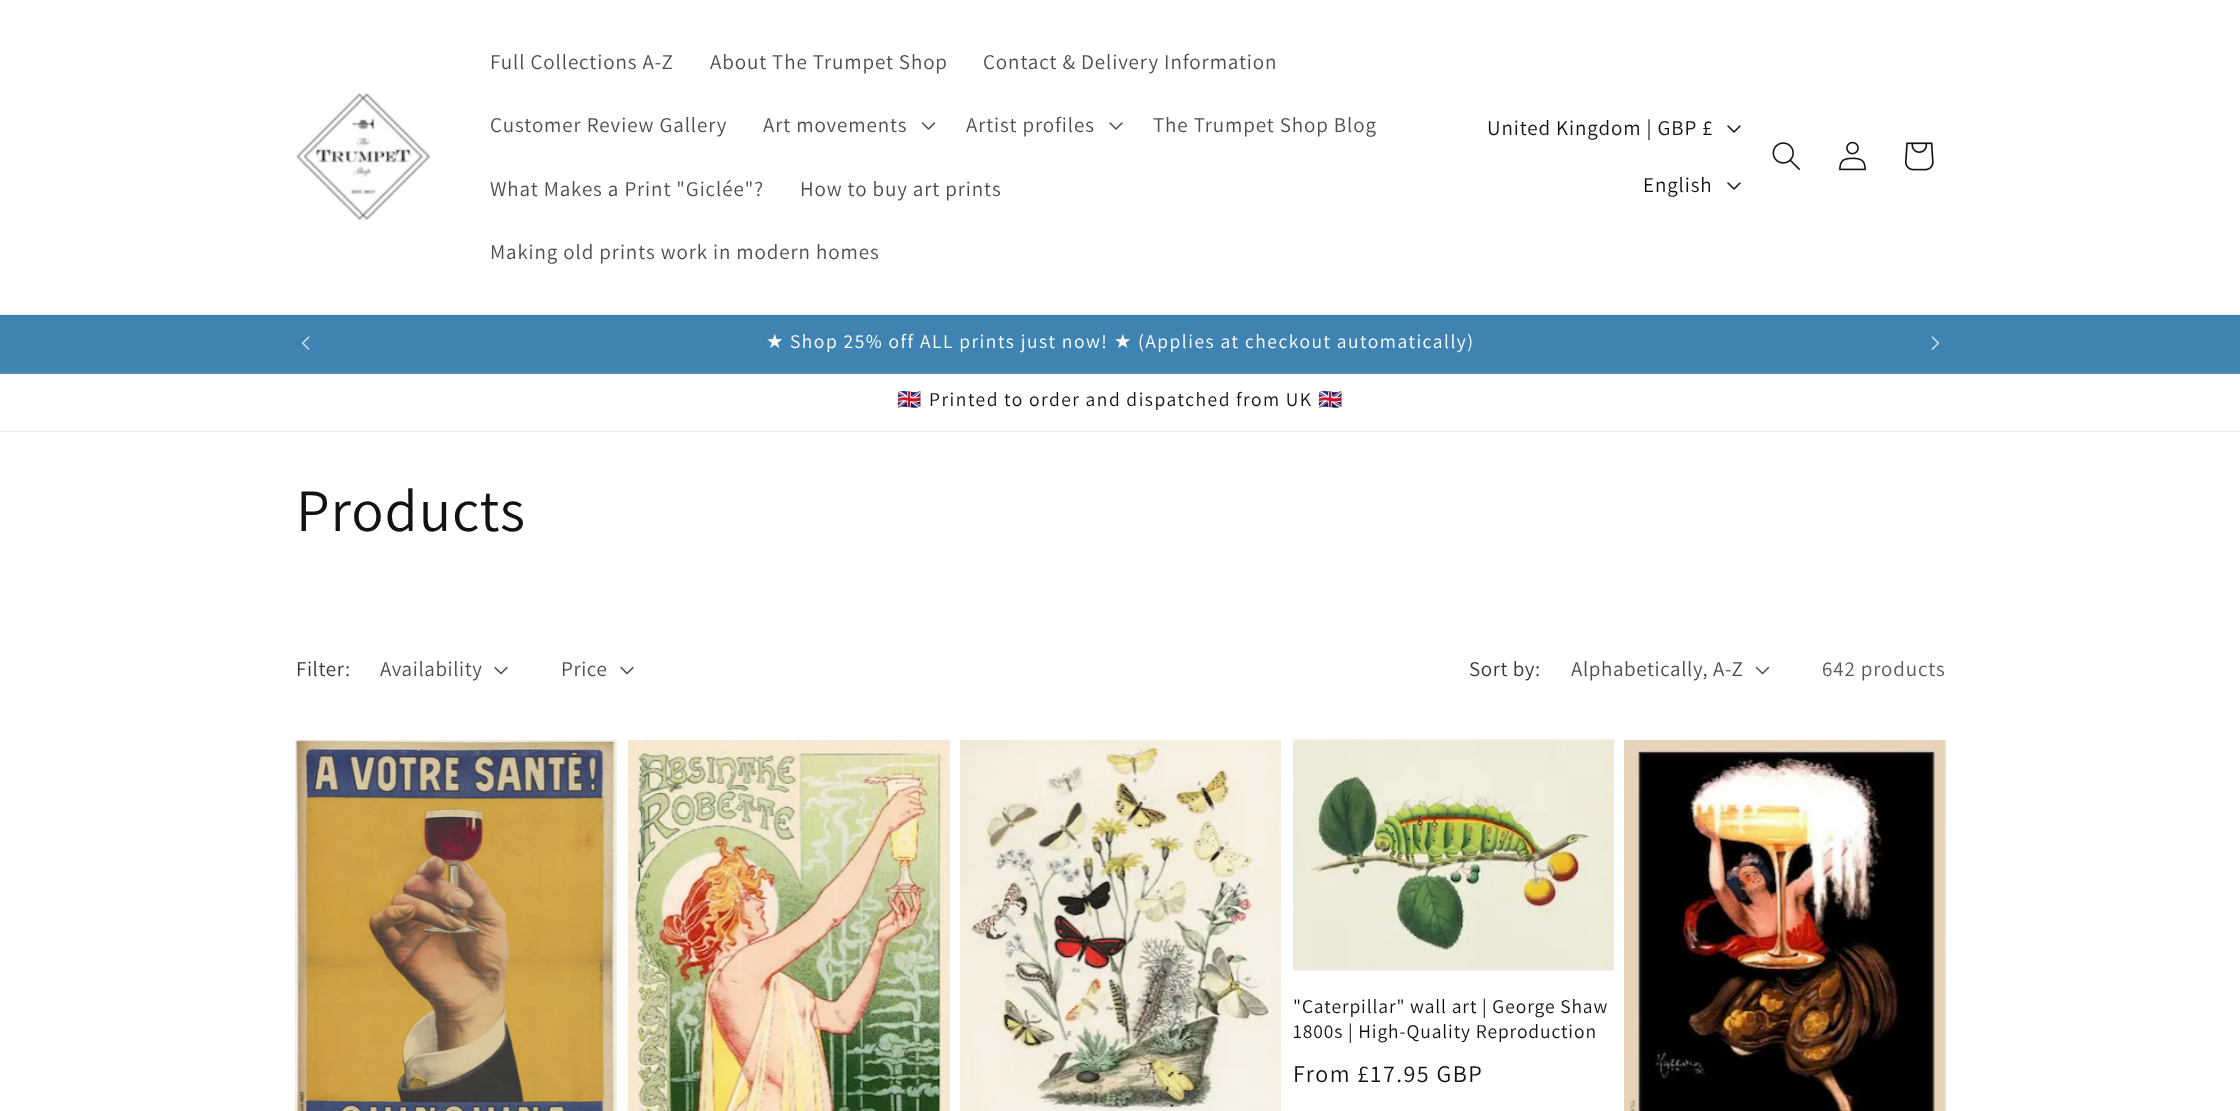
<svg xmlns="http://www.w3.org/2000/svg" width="2240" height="1111">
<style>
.a{font:21px Assistant;letter-spacing:0.9px;fill:#4d4d4d}
.b{font:21px Assistant;letter-spacing:0.9px;fill:#121212}
.c{font:19.5px DejaVu Sans;letter-spacing:1.5px;fill:#fff}
.d{font:19.5px Assistant;letter-spacing:1.5px;fill:#fff}
.e{font:19.5px Noto Color Emoji;letter-spacing:1.5px;fill:#121212}
.f{font:19.5px Assistant;letter-spacing:1.5px;fill:#121212}
.g{font:60px Assistant;letter-spacing:0.9px;fill:#121212}
.h{font:21px Assistant;letter-spacing:0.6px;fill:#363636}
.i{font:21px Assistant;letter-spacing:0.6px;fill:#4d4d4d}
.j{font:21px Assistant;letter-spacing:0.9px;fill:#595959}
.k{font:19.5px Assistant;letter-spacing:0.9px;fill:#121212}
.l{font:24px Assistant;letter-spacing:1.5px;fill:#121212}
</style>
<rect width="100%" height="100%" fill="#fff"/>
<path fill="#ececec" d="M0 314h2240v1H0z"/>
<image href="1.png" x="296" y="91" width="135" height="130"/>
<image href="2.png" x="921" y="122" width="15" height="8"/>
<image href="3.png" x="1109" y="122" width="14" height="8"/>
<image href="4.png" x="1727" y="125" width="14" height="8"/>
<image href="4.png" x="1727" y="182" width="14" height="8"/>
<image href="5.png" x="1772" y="142" width="28" height="28"/>
<image href="6.png" x="1839" y="141" width="27" height="30"/>
<image href="7.png" x="1905" y="142" width="29" height="29"/>
<path fill="#3e83b1" d="M0 316h2240v56H0z"/>
<path fill="#3a7aa4" d="M0 315h2240v1H0z"/>
<path fill="#4d8db7" d="M0 372h2240v2H0z"/>
<image href="8.png" x="302" y="336" width="8" height="14"/>
<image href="9.png" x="1931" y="336" width="8" height="14"/>
<path fill="#ececec" d="M0 431h2240v1H0z"/>
<image href="10.png" x="494" y="666" width="14" height="9"/>
<image href="10.png" x="620" y="666" width="14" height="9"/>
<image href="11.png" x="1755" y="666" width="15" height="9"/>
<path fill="#f3f3f3" d="M616 740h1v371H616z"/>
<image href="12.png" x="295" y="740" width="322" height="371"/>
<image href="13.png" x="628" y="740" width="322" height="371"/>
<image href="14.png" x="960" y="740" width="321" height="371"/>
<image href="15.png" x="1293" y="739" width="321" height="232"/>
<path fill="#f3f3f3" d="M1944 740h2v371H1944z"/>
<image href="16.png" x="1624" y="740" width="322" height="371"/>
<text class="a" x="490" y="69">Full Collections A-Z</text>
<text class="a" x="710" y="69">About The Trumpet Shop</text>
<text class="a" x="983" y="69">Contact &amp; Delivery Information</text>
<text class="a" x="490" y="132">Customer Review Gallery</text>
<text class="a" x="763" y="132">Art movements</text>
<text class="a" x="966" y="132">Artist profiles</text>
<text class="a" x="1153" y="132">The Trumpet Shop Blog</text>
<text class="a" x="490" y="196">What Makes a Print "Giclée"?</text>
<text class="a" x="800" y="196">How to buy art prints</text>
<text class="a" x="490" y="259">Making old prints work in modern homes</text>
<text class="b" x="1487" y="135">United Kingdom | GBP £</text>
<text class="b" x="1643" y="192">English</text>
<text class="c" x="766" y="348">★</text>
<text class="d" x="790" y="348">Shop 25% off ALL prints just now!</text>
<text class="c" x="1114" y="348">★</text>
<text class="d" x="1138" y="348">(Applies at checkout automatically)</text>
<text class="e" x="897" y="406">🇬🇧</text>
<text class="f" x="929" y="406" word-spacing="-0.25">Printed to order and dispatched from UK</text>
<text class="e" x="1318" y="406">🇬🇧</text>
<text class="g" x="296" y="531">Products</text>
<text class="h" x="296" y="676">Filter:</text>
<text class="i" x="380" y="676">Availability</text>
<text class="i" x="561" y="676">Price</text>
<text class="h" x="1469" y="676">Sort by:</text>
<text class="i" x="1571" y="676">Alphabetically, A-Z</text>
<text class="j" x="1822" y="676">642 products</text>
<text class="k" x="1293" y="1013">"Caterpillar" wall art | George Shaw</text>
<text class="k" x="1293" y="1038">1800s | High-Quality Reproduction</text>
<text class="l" x="1293" y="1082">From £17.95 GBP</text>
</svg>
